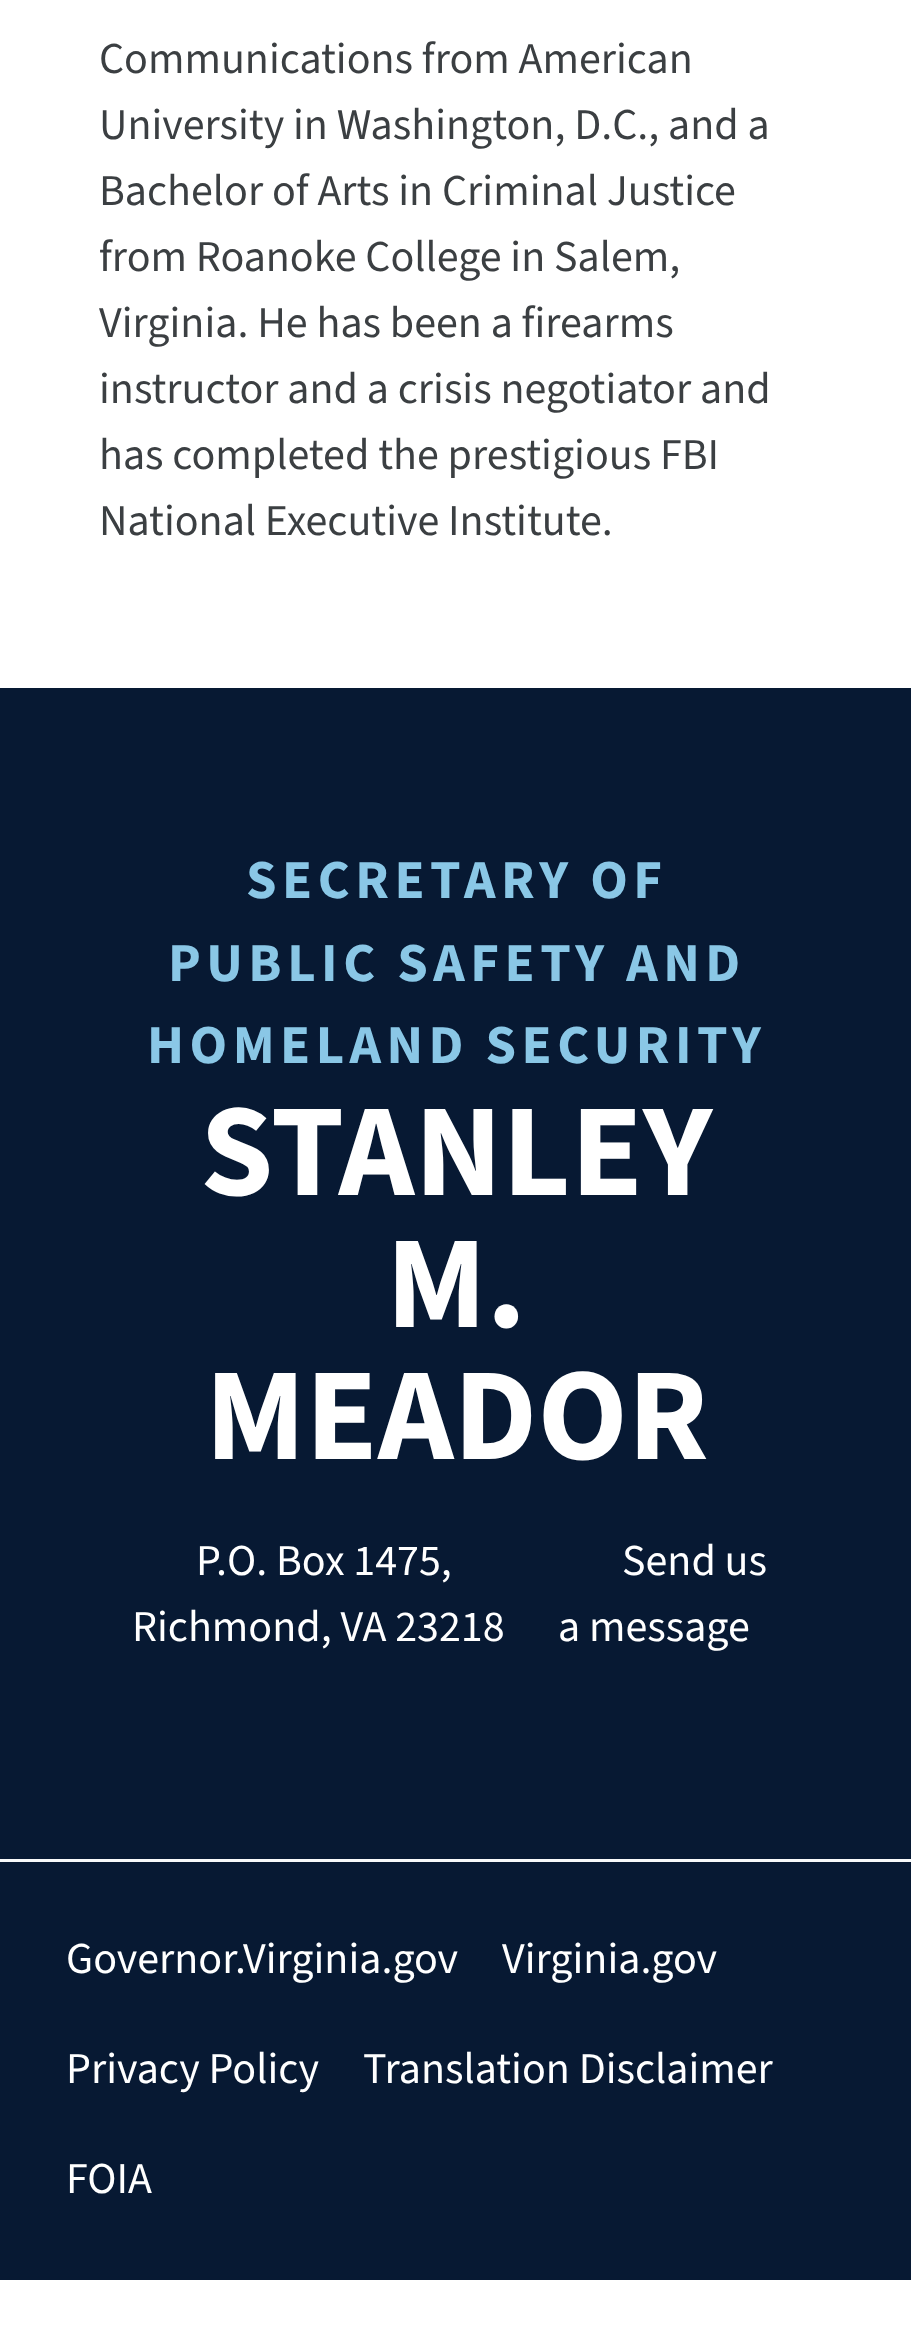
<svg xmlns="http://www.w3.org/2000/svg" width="911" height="2344">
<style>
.a{font:44px 'Source Sans 3';fill:#3b3f42}
.b{font:bold 55px 'Source Sans 3';letter-spacing:5.5px;fill:#8ac7e6}
.c{font:bold 132px 'Source Sans 3';fill:#fff}
.d{font:44px 'Source Sans 3';fill:#fff}
</style>
<rect width="100%" height="100%" fill="#fff"/>
<path fill="#071933" d="M0 688h911v1592H0z"/>
<path fill="#f8f9fa" d="M0 1859h911v3H0z"/>
<text class="a" x="99" y="73">Communications from American</text>
<text class="a" x="99" y="139">University in Washington, D.C., and a</text>
<text class="a" x="99" y="205">Bachelor of Arts in Criminal Justice</text>
<text class="a" x="99" y="271">from Roanoke College in Salem,</text>
<text class="a" x="99" y="337">Virginia. He has been a firearms</text>
<text class="a" x="99" y="403">instructor and a crisis negotiator and</text>
<text class="a" x="99" y="469">has completed the prestigious FBI</text>
<text class="a" x="99" y="535">National Executive Institute.</text>
<text class="b" x="246" y="898">SECRETARY OF</text>
<text class="b" x="168" y="981">PUBLIC SAFETY AND</text>
<text class="b" x="147" y="1063">HOMELAND SECURITY</text>
<text class="c" x="200" y="1195">STANLEY</text>
<text class="c" x="386" y="1327">M.</text>
<text class="c" x="205" y="1459">MEADOR</text>
<text class="d" x="196" y="1575">P.O. Box 1475,</text>
<text class="d" x="132" y="1641">Richmond, VA 23218</text>
<text class="d" x="622" y="1575">Send us</text>
<text class="d" x="558" y="1641">a message</text>
<text class="d" x="66" y="1973">Governor.Virginia.gov</text>
<text class="d" x="502" y="1973">Virginia.gov</text>
<text class="d" x="66" y="2083">Privacy Policy</text>
<text class="d" x="363" y="2083">Translation Disclaimer</text>
<text class="d" x="66" y="2193">FOIA</text>
</svg>
